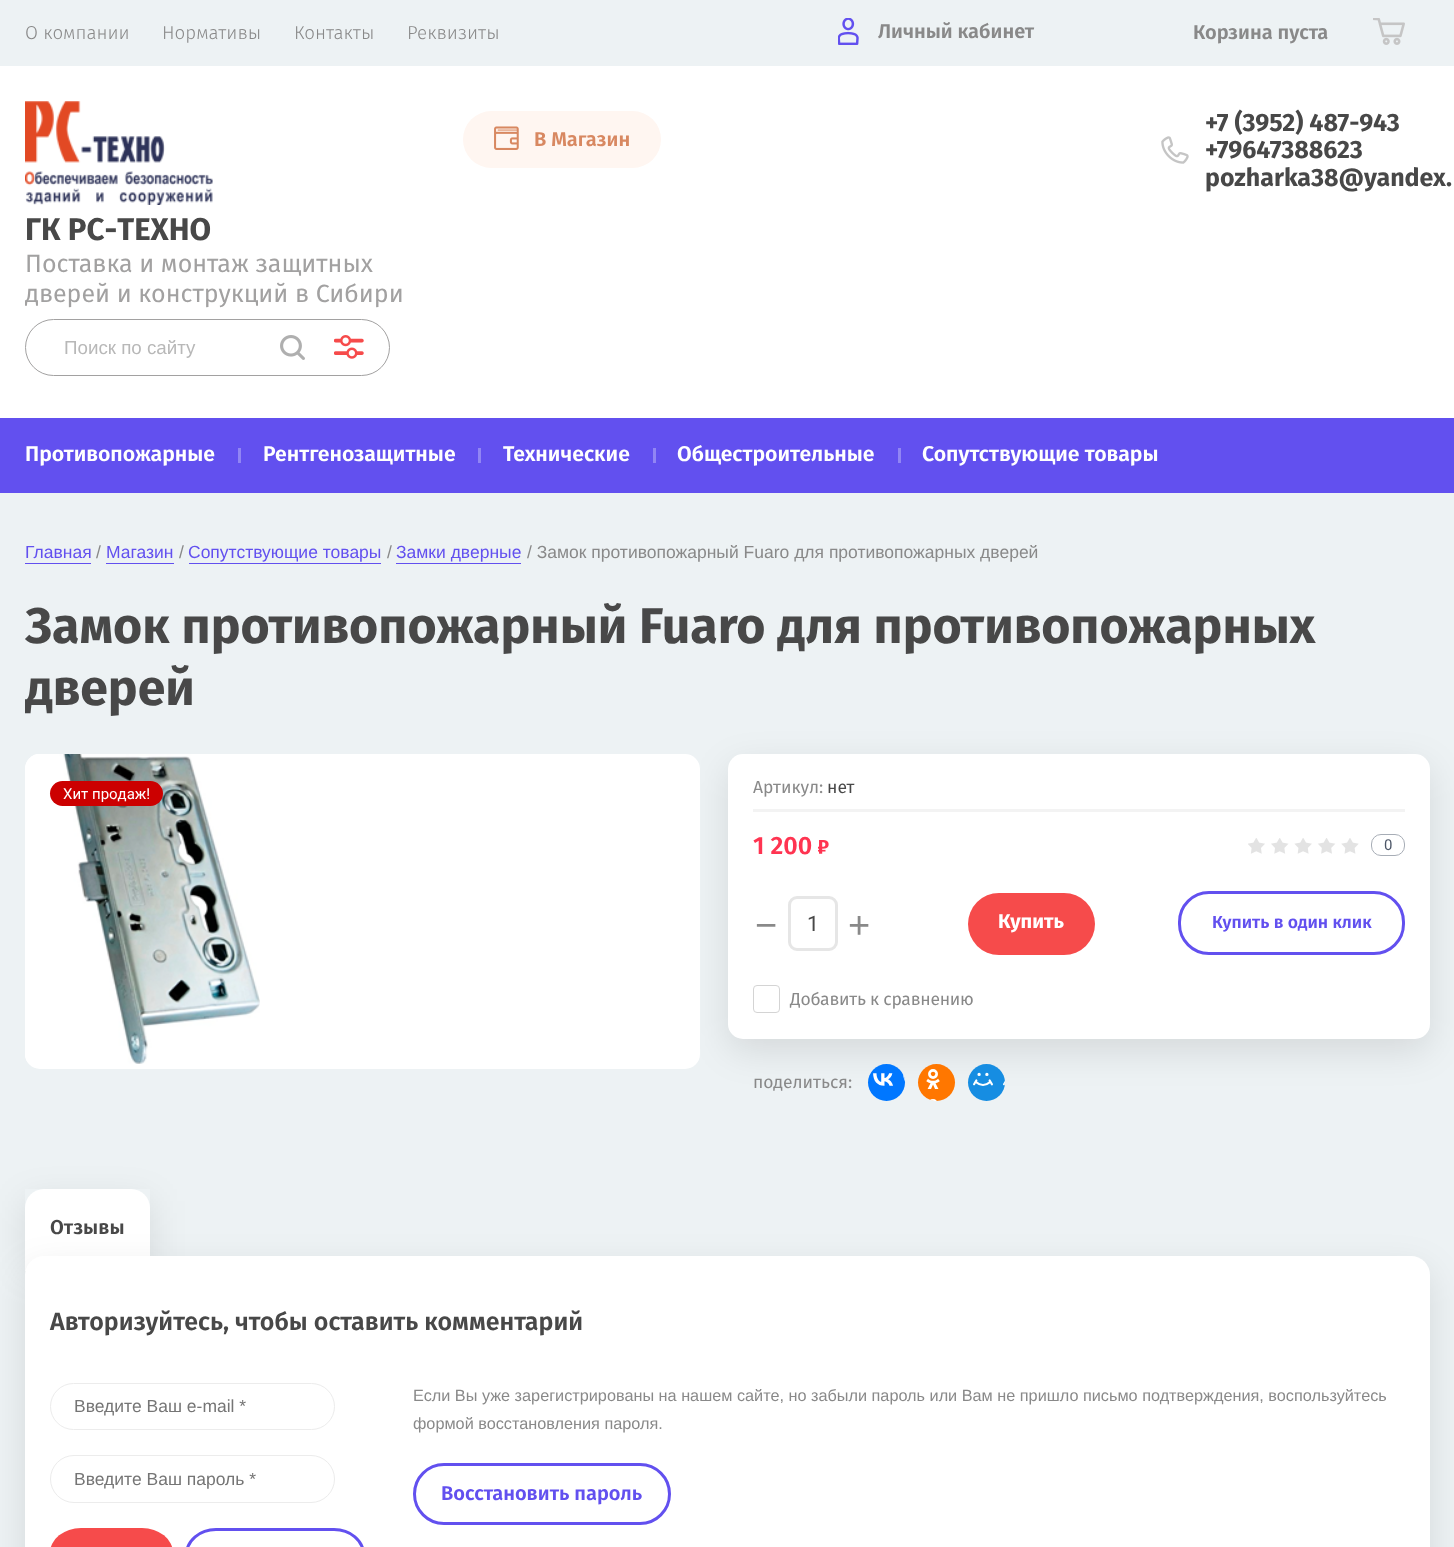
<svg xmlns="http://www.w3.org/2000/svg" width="1454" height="1547">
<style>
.a{font:300 18.75px Fira Sans;fill:#898989}
.b{font:600 20px Fira Sans;fill:#898989}
.c{font:600 20px Fira Sans;fill:#d88861}
.d{font:bold 25px Fira Sans;fill:#484848}
.e{font:bold 31.25px Fira Sans;fill:#484848}
.f{font:25px Fira Sans;fill:#a2a1a1}
.g{font:18.75px Liberation Sans;fill:#b8b8b8}
.h{font:600 21.25px Fira Sans;fill:#fff}
.i{font:17.5px Liberation Sans;fill:#6250ef}
.j{font:17.5px Liberation Sans;fill:#898989}
.k{font:bold 50px Fira Sans;fill:#484848}
.l{font:15px Roboto;fill:#fff}
.m{font:17.5px Fira Sans;fill:#898989}
.n{font:17.5px Fira Sans;fill:#484848}
.o{font:600 25px Fira Sans;fill:#ff3451}
.p{font:15px Roboto;fill:#4c5667}
.q{font:38px Liberation Sans;fill:#898989}
.r{font:21.25px Roboto;fill:#484848}
.s{font:bold 20px Fira Sans;fill:#fff}
.t{font:600 17.5px Fira Sans;fill:#6250ef}
.u{font:17.5px Fira Sans;letter-spacing:-0.25px;fill:#898989}
.v{font:600 20px Fira Sans;fill:#484848}
.w{font:600 25px Fira Sans;fill:#484848}
.x{font:17.5px Liberation Sans;fill:#757575}
.y{font:16.25px Liberation Sans;fill:#898989}
.z{font:600 20px Fira Sans;fill:#6250ef}
</style>
<defs>
<clipPath id="clip1"><path d="M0 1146h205v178h-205zm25 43h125v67h-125z" clip-rule="evenodd"/></clipPath>
</defs>
<rect width="100%" height="100%" fill="#fff"/>
<path fill="#edf2f4" d="M0 0h1454v66H0z"/>
<image href="1.png" x="838" y="18" width="21" height="27"/>
<image href="2.png" x="1373" y="18" width="32" height="27"/>
<rect fill="#fff6f1" x="463" y="111" width="198" height="57" rx="28.5"/>
<image href="3.png" x="494" y="126" width="25" height="24"/>
<image href="4.png" x="1161" y="136" width="28" height="28"/>
<image href="5.png" x="25" y="101" width="188" height="104"/>
<rect fill="none" stroke="#a2a1a1" x="25.5" y="319.5" width="364" height="56" rx="28"/>
<image href="6.png" x="280" y="335" width="25" height="25"/>
<image href="7.png" x="334" y="335" width="30" height="24"/>
<path fill="#edf2f4" d="M0 493h1454v1054H0z"/>
<path fill="#6250ef" d="M0 418h1454v75H0z"/>
<path fill="#9185f4" d="M238 448h3v15H238z"/>
<path fill="#9185f4" d="M478 448h3v15H478z"/>
<path fill="#9185f4" d="M653 448h3v15H653z"/>
<path fill="#9185f4" d="M898 448h3v15H898z"/>
<path fill="#6250ef" d="M25 563h66v1H25z"/>
<path fill="#6250ef" d="M106 563h68v1H106z"/>
<path fill="#6250ef" d="M189 563h192v1H189z"/>
<path fill="#6250ef" d="M396 563h125v1H396z"/>
<rect fill="#0000001a" filter="blur(18px)" x="728" y="766" width="702" height="285" rx="15"/>
<rect fill="#fff" x="25" y="754" width="675" height="315" rx="15"/>
<image href="8.png" x="25" y="754" width="235" height="310"/>
<rect fill="#c00" x="50" y="781" width="113" height="25" rx="12.5"/>
<rect fill="#fff" x="728" y="754" width="702" height="285" rx="15"/>
<path fill="#f3f3f3" d="M753 809h652v3H753z"/>
<image href="9.png" x="818" y="840" width="11" height="14"/>
<image href="10.png" x="1248" y="838" width="111" height="16"/>
<rect fill="none" stroke="#a7adb6" x="1371.5" y="834.5" width="33" height="21" rx="9.5"/>
<rect fill="none" stroke="#e6e6e6" stroke-width="3" x="789.5" y="897.5" width="47" height="52" rx="7.5"/>
<rect fill="#f64b4b" x="968" y="893" width="127" height="62" rx="31"/>
<rect fill="none" stroke="#6250ef" stroke-width="3" x="1179.5" y="892.5" width="224" height="61" rx="29.5"/>
<rect fill="none" stroke="#d4d4d4" x="753.5" y="985.5" width="26" height="27" rx="3.5"/>
<circle fill="#07f" cx="886.5" cy="1082.5" r="18.5"/>
<image href="11.png" x="873" y="1073" width="32" height="13"/>
<circle fill="#f70" cx="936.5" cy="1082.5" r="18.5"/>
<image href="12.png" x="926" y="1069" width="14" height="32"/>
<circle fill="#168de2" cx="986.5" cy="1082.5" r="18.5"/>
<image href="13.png" x="973" y="1072" width="32" height="14"/>
<g clip-path="url(#clip1)">
<path fill="#0000001a" filter="blur(18px)" d="M25 1201h125v68H25z"/>
</g>
<path fill="#fff" d="M44 1189h87c10.5 0 19 8.5 19 19v63h-125v-63c0-10.5 8.5-19 19-19z"/>
<rect fill="#0000001a" filter="blur(18px)" x="25" y="1269" width="1405" height="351" rx="19"/>
<rect fill="#fff" x="25" y="1256" width="1405" height="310" rx="19"/>
<rect fill="none" stroke="#ececec" x="50.5" y="1383.5" width="284" height="46" rx="23"/>
<rect fill="none" stroke="#ececec" x="50.5" y="1455.5" width="284" height="47" rx="23.5"/>
<rect fill="#f64b4b" x="50" y="1528" width="123" height="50" rx="31"/>
<rect fill="none" stroke="#6250ef" stroke-width="3" x="186.5" y="1529.5" width="177" height="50" rx="29.5"/>
<rect fill="none" stroke="#6250ef" stroke-width="3" x="414.5" y="1464.5" width="255" height="59" rx="29.5"/>
<text class="a" x="25" y="39">О компании</text>
<text class="a" x="162" y="39">Нормативы</text>
<text class="a" x="294" y="39">Контакты</text>
<text class="a" x="407" y="39">Реквизиты</text>
<text class="b" x="878" y="38">Личный кабинет</text>
<text class="b" x="1193" y="39">Корзина пуста</text>
<text class="c" x="534" y="146">В Магазин</text>
<text class="d" x="1205" y="131">+7 (3952) 487-943</text>
<text class="d" x="1205" y="158">+79647388623</text>
<text class="d" x="1205" y="186">pozharka38@yandex.</text>
<text class="e" x="25" y="240">ГК РС-ТЕХНО</text>
<text class="f" x="25" y="272">Поставка и монтаж защитных</text>
<text class="f" x="25" y="302">дверей и конструкций в Сибири</text>
<text class="g" x="64" y="354">Поиск по сайту</text>
<text class="h" x="25" y="461">Противопожарные</text>
<text class="h" x="263" y="461">Рентгенозащитные</text>
<text class="h" x="503" y="461">Технические</text>
<text class="h" x="677" y="461">Общестроительные</text>
<text class="h" x="922" y="461">Сопутствующие товары</text>
<text class="i" x="25" y="558">Главная</text>
<text class="j" x="96" y="558">/</text>
<text class="i" x="106" y="558">Магазин</text>
<text class="j" x="179" y="558">/</text>
<text class="i" x="188" y="558">Сопутствующие товары</text>
<text class="j" x="387" y="558">/</text>
<text class="i" x="396" y="558">Замки дверные</text>
<text class="j" x="527" y="558">/ Замок противопожарный Fuaro для противопожарных дверей</text>
<text class="k" x="25" y="643">Замок противопожарный Fuaro для противопожарных</text>
<text class="k" x="25" y="705">дверей</text>
<text class="l" x="63" y="799">Хит продаж!</text>
<text class="m" x="753" y="793">Артикул:</text>
<text class="n" x="827" y="793">нет</text>
<text class="o" x="753" y="854">1 200</text>
<text class="p" x="1384" y="850">0</text>
<text class="q" x="755" y="938">−</text>
<text class="r" x="807" y="931">1</text>
<text class="q" x="848" y="938">+</text>
<text class="s" x="998" y="928">Купить</text>
<text class="t" x="1212" y="928">Купить в один клик</text>
<text class="u" x="790" y="1005">Добавить к сравнению</text>
<text class="m" x="753" y="1088">поделиться:</text>
<text class="v" x="50" y="1234">Отзывы</text>
<text class="w" x="50" y="1330">Авторизуйтесь, чтобы оставить комментарий</text>
<text class="x" x="74" y="1412">Введите Ваш e-mail *</text>
<text class="x" x="74" y="1485">Введите Ваш пароль *</text>
<text class="y" x="413" y="1401">Если Вы уже зарегистрированы на нашем сайте, но забыли пароль или Вам не пришло письмо подтверждения, воспользуйтесь</text>
<text class="y" x="413" y="1429">формой восстановления пароля.</text>
<text class="z" x="441" y="1500">Восстановить пароль</text>
</svg>
